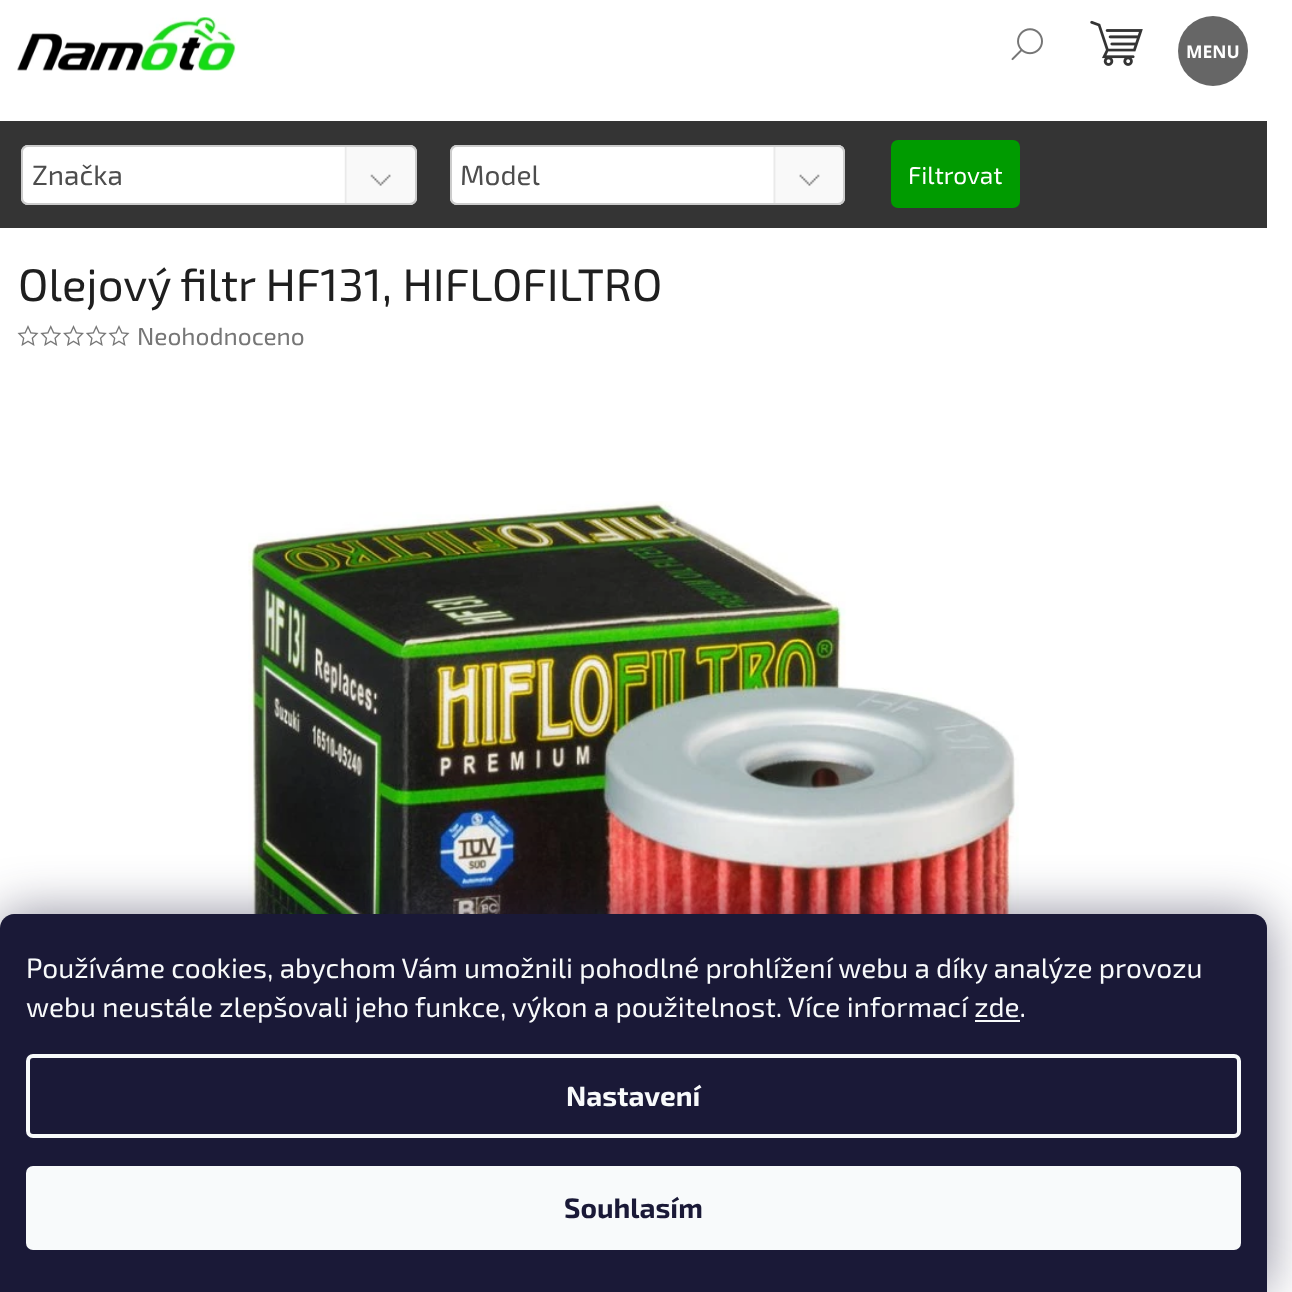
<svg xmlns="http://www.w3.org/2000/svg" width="1292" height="1292">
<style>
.a{font:bold 17.5px Open Sans;fill:#fff}
.b{font:28px 'Exo 2';fill:#4d4d4d}
.c{font:24.5px 'Exo 2';fill:#fff}
.d{font:45.5px 'Exo 2';fill:#1f1f1f}
.e{font:24.5px 'Exo 2';fill:#767676}
.f{font:28px 'Exo 2';fill:#f8fafb}
.g{font:bold 28px 'Exo 2';fill:#f8fafb}
.h{font:bold 28px 'Exo 2';fill:#1a1937}
</style>
<rect width="100%" height="100%" fill="#fff"/>
<image href="1.png" x="17" y="17" width="219" height="54"/>
<image href="2.png" x="1090" y="20" width="53" height="46"/>
<image href="3.png" x="1011" y="28" width="32" height="33"/>
<circle fill="#666" cx="1213" cy="51" r="35"/>
<path fill="#343434" d="M0 121h1267v107H0z"/>
<rect fill="#fff" x="21" y="145" width="396" height="60" rx="7"/>
<image href="4.png" x="344" y="145" width="71" height="60"/>
<rect fill="none" stroke="#ccc" stroke-width="2" x="22" y="146" width="394" height="58" rx="6"/>
<rect fill="#fff" x="450" y="145" width="395" height="60" rx="7"/>
<image href="5.png" x="773" y="145" width="71" height="60"/>
<rect fill="none" stroke="#ccc" stroke-width="2" x="451" y="146" width="393" height="58" rx="6"/>
<rect fill="#009b00" x="891" y="140" width="129" height="68" rx="7"/>
<image href="6.png" x="17" y="325" width="22" height="21"/>
<image href="7.png" x="40" y="325" width="21" height="21"/>
<image href="8.png" x="63" y="325" width="21" height="21"/>
<image href="9.png" x="86" y="325" width="21" height="21"/>
<image href="6.png" x="108" y="325" width="22" height="21"/>
<image href="10.png" x="248" y="501" width="771" height="413"/>
<rect fill="#1b193980" filter="blur(26px)" y="914" width="1267" height="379" rx="14"/>
<path fill="#1a1937" d="M14 914h1239c7.5 0 14 6.5 14 14v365h-1267v-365c0-7.5 6.5-14 14-14z"/>
<path fill="#f8fafb" d="M975 1020h45v2H975z"/>
<rect fill="none" stroke="#f8fafb" stroke-width="4" x="28" y="1056" width="1211" height="80" rx="5"/>
<rect fill="#f8fafb" x="26" y="1166" width="1215" height="84" rx="7"/>
<text class="a" x="1186" y="58">MENU</text>
<text class="b" x="32" y="185">Značka</text>
<text class="b" x="460" y="185">Model</text>
<text class="c" x="908" y="184">Filtrovat</text>
<text class="d" x="18" y="301">Olejový filtr HF131, HIFLOFILTRO</text>
<text class="e" x="137" y="345">Neohodnoceno</text>
<text class="f" x="26" y="978">Používáme cookies, abychom Vám umožnili pohodlné prohlížení webu a díky analýze provozu</text>
<text class="f" x="26" y="1017">webu neustále zlepšovali jeho funkce, výkon a použitelnost. Více informací zde.</text>
<text class="g" x="566" y="1106">Nastavení</text>
<text class="h" x="564" y="1218">Souhlasím</text>
</svg>
